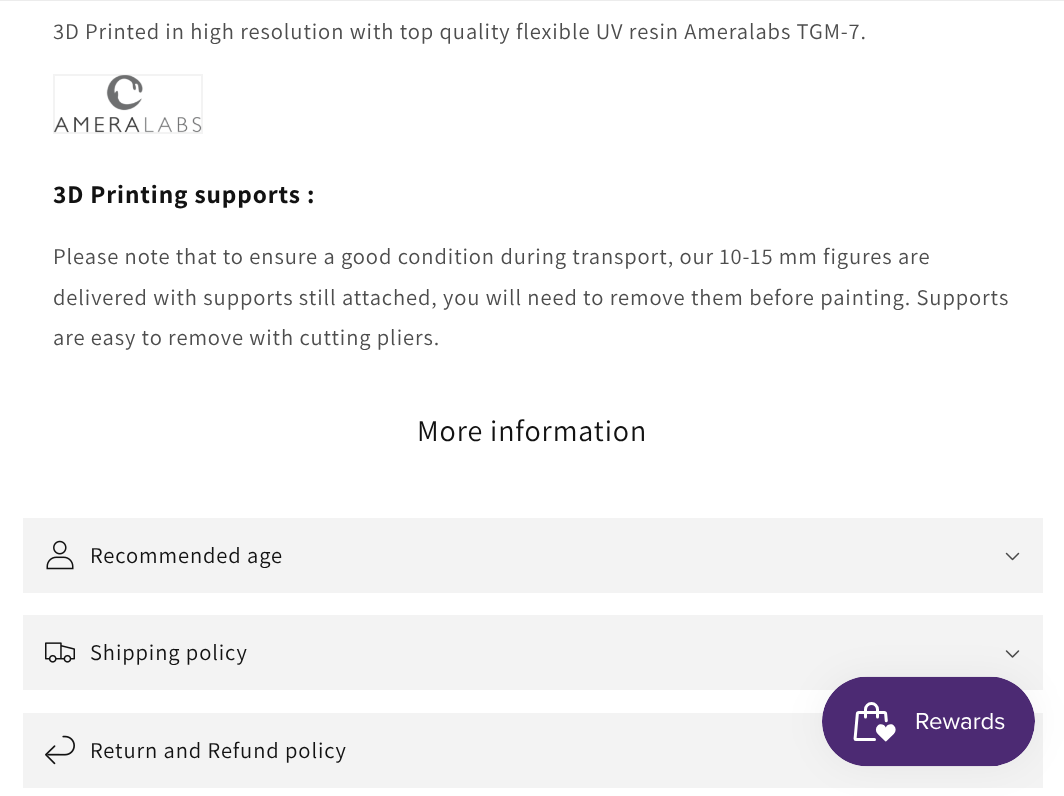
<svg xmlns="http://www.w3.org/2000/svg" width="1064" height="796">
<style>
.a{font:22.5px Assistant;letter-spacing:0.9px;fill:#4d4d4d}
.b{font:bold 25.5px Assistant;letter-spacing:0.9px;fill:#121212}
.c{font:30px Assistant;letter-spacing:0.9px;fill:#121212}
.d{font:22.5px Assistant;letter-spacing:0.9px;fill:#121212}
</style>
<rect width="100%" height="100%" fill="#fff"/>
<path fill="#ececec" d="M0 0h1064v1H0z"/>
<path fill="none" stroke="#f3f3f3" stroke-width="2" d="M54 75h148v58H54z"/>
<image href="1.png" x="53" y="75" width="149" height="58"/>
<path fill="#f3f3f3" d="M23 518h1020v75H23z"/>
<image href="2.png" x="46" y="540" width="28" height="30"/>
<image href="3.png" x="1005" y="552" width="15" height="9"/>
<path fill="#f3f3f3" d="M23 615h1020v75H23z"/>
<image href="4.png" x="45" y="642" width="30" height="21"/>
<image href="5.png" x="1005" y="650" width="15" height="8"/>
<path fill="#f3f3f3" d="M23 713h1020v75H23z"/>
<image href="6.png" x="45" y="735" width="30" height="30"/>
<rect fill="#0000000d" filter="blur(19px)" x="822" y="677" width="213" height="90" rx="45"/>
<image href="7.png" x="822" y="676" width="213" height="91"/>
<text class="a" x="53" y="39">3D Printed in high resolution with top quality flexible UV resin Ameralabs TGM-7.</text>
<text class="b" x="53" y="203">3D Printing supports :</text>
<text class="a" x="53" y="264">Please note that to ensure a good condition during transport, our 10-15 mm figures are</text>
<text class="a" x="53" y="305">delivered with supports still attached, you will need to remove them before painting. Supports</text>
<text class="a" x="53" y="345">are easy to remove with cutting pliers.</text>
<text class="c" x="417" y="441">More information</text>
<text class="d" x="90" y="563">Recommended age</text>
<text class="d" x="90" y="660">Shipping policy</text>
<text class="d" x="90" y="758">Return and Refund policy</text>
</svg>
